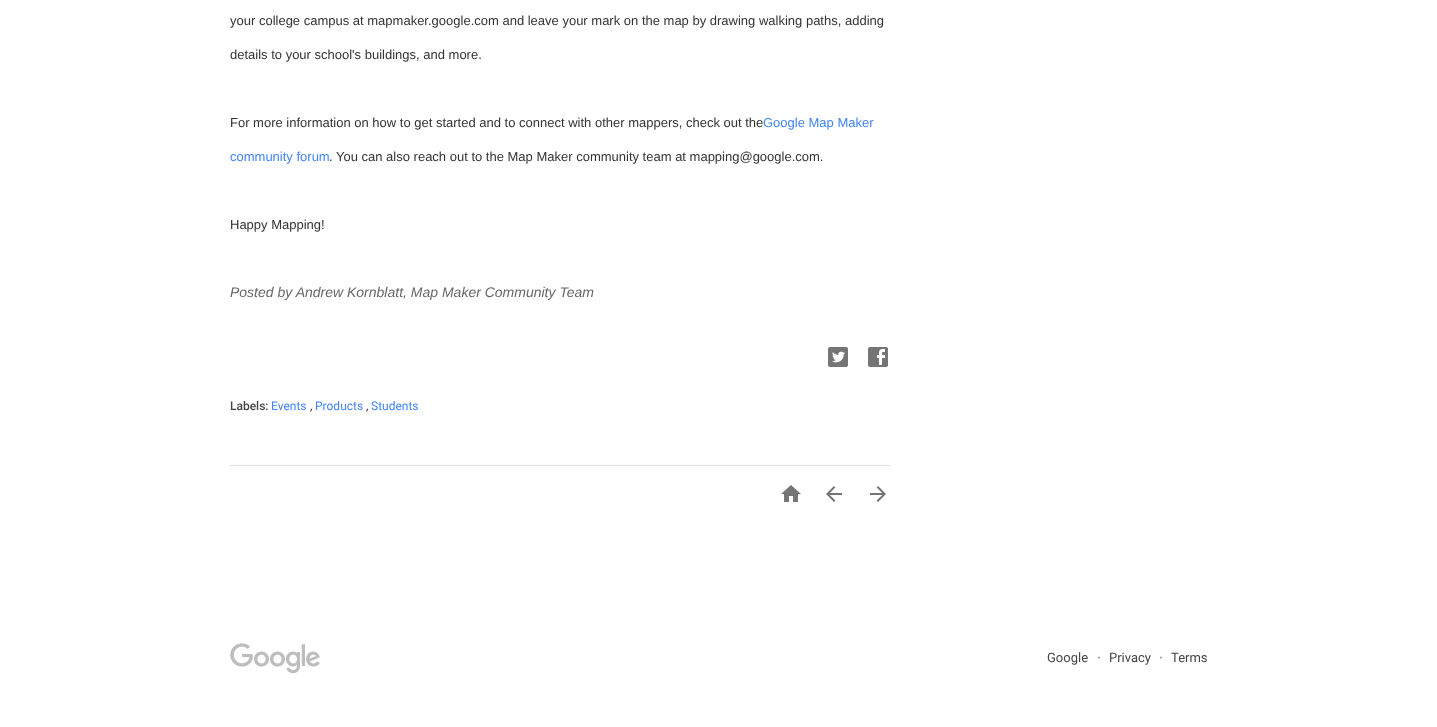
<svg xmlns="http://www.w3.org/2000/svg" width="1437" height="727">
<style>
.a{font:13px Liberation Sans;fill:#333}
.b{font:13px Liberation Sans;fill:#4184f3}
.c{font:italic 14px Liberation Sans;fill:#666}
.d{font:500 12px Roboto;fill:#444}
.e{font:12px Roboto;fill:#4184f3}
.f{font:12px Roboto;fill:#212121}
.g{font:13px Roboto;fill:#444}
.h{font:bold 13px Roboto;fill:#999}
</style>
<rect width="100%" height="100%" fill="#fff"/>
<image href="1.png" x="828" y="347" width="20" height="20"/>
<image href="2.png" x="868" y="347" width="20" height="20"/>
<path fill="#e0e0e0" d="M230 465h660v1H230z"/>
<image href="3.png" x="781" y="485" width="20" height="17"/>
<image href="4.png" x="826" y="486" width="16" height="16"/>
<image href="5.png" x="870" y="486" width="16" height="16"/>
<image href="6.png" x="230" y="643" width="90" height="31"/>
<text class="a" x="230" y="25">your college campus at mapmaker.google.com and leave your mark on the map by drawing walking paths, adding</text>
<text class="a" x="230" y="59">details to your school's buildings, and more.</text>
<text class="a" x="230" y="127">For more information on how to get started and to connect with other mappers, check out the</text>
<text class="b" x="763" y="127">Google Map Maker</text>
<text class="b" x="230" y="161">community forum</text>
<text class="a" x="329" y="161">. You can also reach out to the Map Maker community team at mapping@google.com.</text>
<text class="a" x="230" y="229">Happy Mapping!</text>
<text class="c" x="230" y="297">Posted by Andrew Kornblatt, Map Maker Community Team</text>
<text class="d" x="230" y="410">Labels:</text>
<text class="e" x="271" y="410">Events</text>
<text class="f" x="310" y="410">,</text>
<text class="e" x="315" y="410">Products</text>
<text class="f" x="366" y="410">,</text>
<text class="e" x="371" y="410">Students</text>
<text class="g" x="1047" y="662">Google</text>
<text class="h" x="1097" y="662">·</text>
<text class="g" x="1109" y="662">Privacy</text>
<text class="h" x="1159" y="662">·</text>
<text class="g" x="1171" y="662">Terms</text>
</svg>
